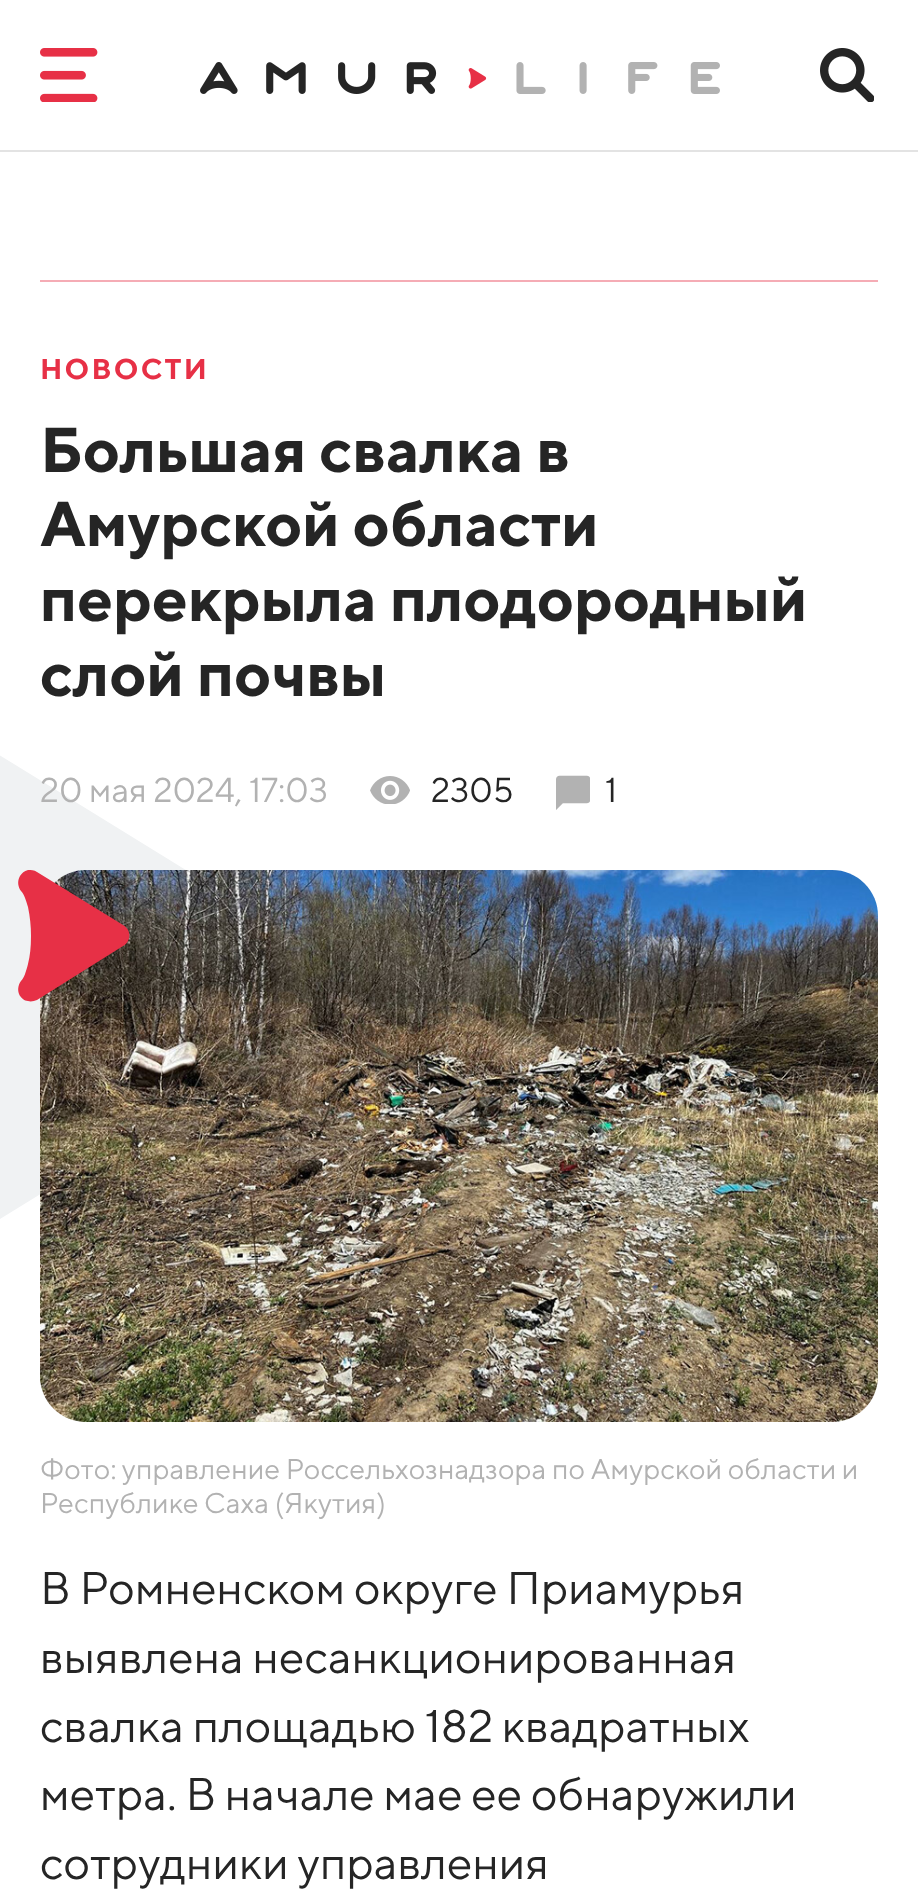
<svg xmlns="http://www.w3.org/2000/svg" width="918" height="1902">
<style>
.a{font:bold 28.7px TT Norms;letter-spacing:2.25px;fill:#e73046}
.b{font:bold 63.1px TT Norms;fill:#252525}
.c{font:34.5px TT Norms;fill:#b2b2b2}
.d{font:34.5px TT Norms;fill:#252525}
.e{font:28.7px TT Norms;fill:#b2b2b2}
.f{font:45.9px TT Norms;fill:#252525}
</style>
<rect width="100%" height="100%" fill="#fff"/>
<path fill="#e3e3e3" d="M0 150h918v2H0z"/>
<image href="1.png" x="40" y="48" width="58" height="54"/>
<image href="2.png" x="820" y="48" width="54" height="54"/>
<image href="3.png" x="200" y="62" width="520" height="32"/>
<path fill="#f5acb5" d="M40 280h838v2H40z"/>
<image href="4.png" x="370" y="776" width="40" height="28"/>
<image href="5.png" x="556" y="775" width="34" height="35"/>
<path fill="#f0f2f3" d="M-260 1379c-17 10-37 14-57 9c-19-5-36-17-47-34c-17-29-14-65 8-90c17-21 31-57 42-102c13-50 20-110 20-175c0-59-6-118-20-175c-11-45-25-81-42-102c-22-25-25-61-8-90c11-17 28-29 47-34c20-5 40-1 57 9l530 327c50 28 49 101 1 130z"/>
<image href="6.png" x="40" y="870" width="838" height="552"/>
<path fill="#e73046" d="M37 1000c-3 1-6 2-9 1c-4 0-6-3-8-5c-3-5-2-11 1-15c3-3 5-9 7-17c2-8 3-17 3-28c0-10-1-19-3-29c-2-7-4-13-7-16c-3-4-4-10-1-15c2-3 4-5 8-6c3 0 6 0 9 2l86 53c9 5 8 17 0 21z"/>
<text class="a" x="40" y="379">НОВОСТИ</text>
<text class="b" x="40" y="472">Большая свалка в</text>
<text class="b" x="40" y="546">Амурской области</text>
<text class="b" x="40" y="621">перекрыла плодородный</text>
<text class="b" x="40" y="696">слой почвы</text>
<text class="c" x="40" y="802">20 мая 2024, 17:03</text>
<text class="d" x="431" y="802">2305</text>
<text class="d" x="605" y="802">1</text>
<text class="e" x="40" y="1479">Фото: управление Россельхознадзора по Амурской области и</text>
<text class="e" x="40" y="1513">Республике Саха (Якутия)</text>
<text class="f" x="40" y="1604">В Ромненском округе Приамурья</text>
<text class="f" x="40" y="1673">выявлена несанкционированная</text>
<text class="f" x="40" y="1742">свалка площадью 182 квадратных</text>
<text class="f" x="40" y="1810">метра. В начале мае ее обнаружили</text>
<text class="f" x="40" y="1879">сотрудники управления</text>
</svg>
